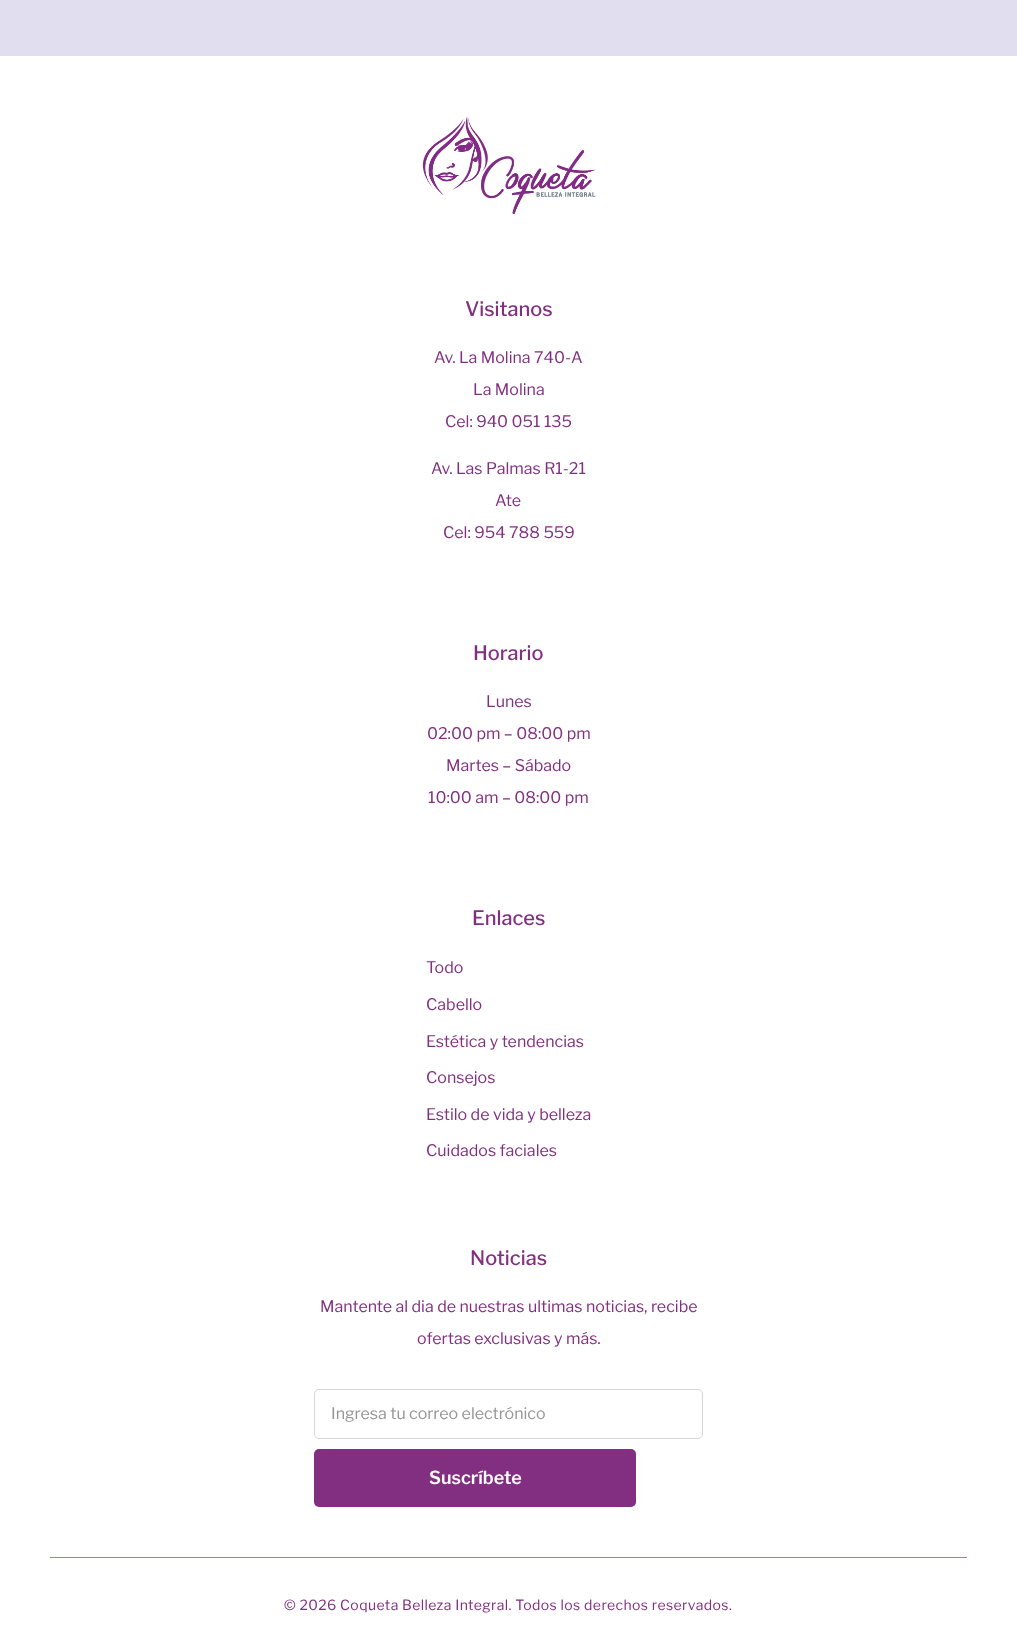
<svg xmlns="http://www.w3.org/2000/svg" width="1017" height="1652">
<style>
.a{font:500 20px Libre Franklin;fill:#822e81}
.b{font:16px Libre Franklin;fill:#822e81}
.c{font:16px Libre Franklin;fill:#969496}
.d{font:600 18px Libre Franklin;fill:#fff}
.e{font:14px Libre Franklin;letter-spacing:0.4px;fill:#822e81}
</style>
<rect width="100%" height="100%" fill="#e1deef"/>
<path fill="#fff" d="M0 56h1017v1596H0z"/>
<image href="1.png" x="422" y="117" width="174" height="98"/>
<rect fill="none" stroke="#d6d6d6" x="314.5" y="1389.5" width="388" height="49" rx="4.5"/>
<rect fill="#822e81" x="314" y="1449" width="322" height="58" rx="5"/>
<path fill="#ae77ad" d="M50 1557h917v1H50z"/>
<text class="a" x="465" y="316">Visitanos</text>
<text class="b" x="434" y="363">Av. La Molina 740-A</text>
<text class="b" x="473" y="395">La Molina</text>
<text class="b" x="445" y="427">Cel: 940 051 135</text>
<text class="b" x="431" y="474">Av. Las Palmas R1-21</text>
<text class="b" x="495" y="506">Ate</text>
<text class="b" x="443" y="538">Cel: 954 788 559</text>
<text class="a" x="473" y="660">Horario</text>
<text class="b" x="486" y="707">Lunes</text>
<text class="b" x="427" y="739">02:00 pm – 08:00 pm</text>
<text class="b" x="446" y="771">Martes – Sábado</text>
<text class="b" x="428" y="803">10:00 am – 08:00 pm</text>
<text class="a" x="472" y="925">Enlaces</text>
<text class="b" x="426" y="973">Todo</text>
<text class="b" x="426" y="1010">Cabello</text>
<text class="b" x="426" y="1047">Estética y tendencias</text>
<text class="b" x="426" y="1083">Consejos</text>
<text class="b" x="426" y="1120">Estilo de vida y belleza</text>
<text class="b" x="426" y="1156">Cuidados faciales</text>
<text class="a" x="470" y="1265">Noticias</text>
<text class="b" x="320" y="1312">Mantente al dia de nuestras ultimas noticias, recibe</text>
<text class="b" x="417" y="1344">ofertas exclusivas y más.</text>
<text class="c" x="331" y="1419">Ingresa tu correo electrónico</text>
<text class="d" x="429" y="1484">Suscríbete</text>
<text class="e" x="284" y="1610">© 2026 Coqueta Belleza Integral. Todos los derechos reservados.</text>
</svg>
